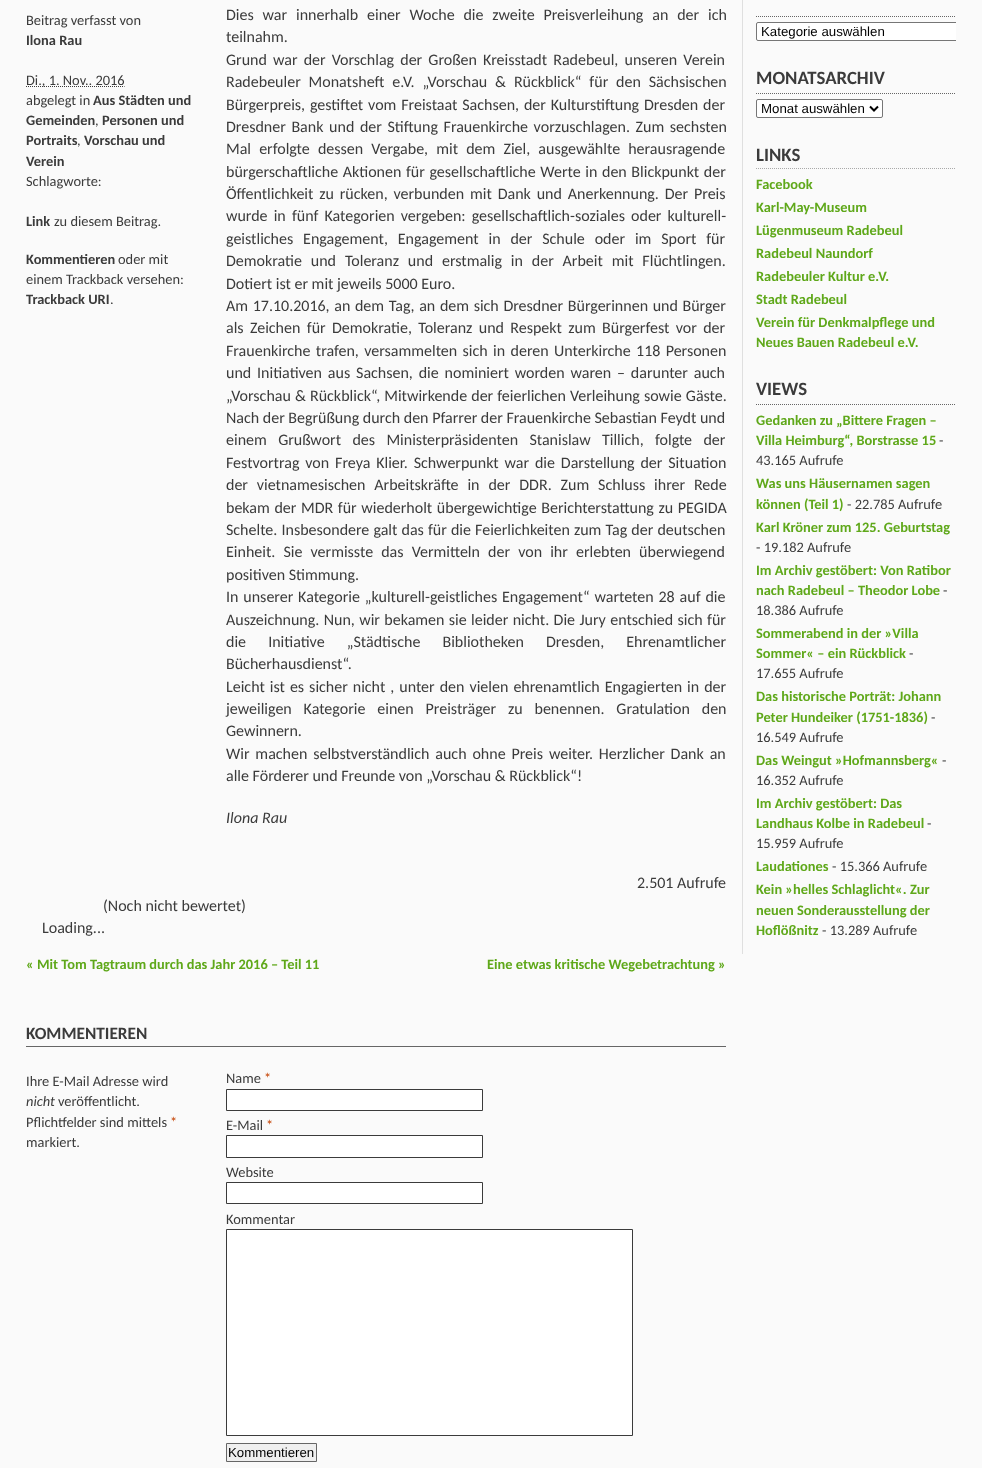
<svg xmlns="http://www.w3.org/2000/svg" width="982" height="1468">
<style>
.a{font:14.4px Carlito;fill:#3b3b3b}
.b{font:bold 14.4px Carlito;fill:#3b3b3b}
.c{font:16px Carlito;fill:#3b3b3b}
.d{font:italic 16px Carlito;fill:#3b3b3b}
.e{font:bold 14.4px Carlito;fill:#5fa81a}
.f{font:bold 17.25px Carlito;fill:#3b3b3b}
.g{font:italic 14.4px Carlito;fill:#3b3b3b}
.h{font:14.4px Carlito;fill:#c44100}
.i{font:13.25px Liberation Sans;fill:#000}
.j{font:bold 18.75px Carlito;fill:#3b3b3b}
</style>
<defs>
<clipPath id="clip1"><path d="M743 0h213v954H743z"/></clipPath>
</defs>
<rect width="100%" height="100%" fill="#fafafa"/>
<path fill="none" stroke="#3b3b3b" stroke-dasharray="1 1" d="M26 86.5h98.5"/>
<path fill="#666" d="M26 1046h700v1H26z"/>
<path fill="#fff" stroke="#3b3b3b" d="M226.5 1089.5h256v21H226.5z"/>
<path fill="#fff" stroke="#3b3b3b" d="M226.5 1135.5h256v22H226.5z"/>
<path fill="#fff" stroke="#3b3b3b" d="M226.5 1182.5h256v21H226.5z"/>
<path fill="#fff" stroke="#3b3b3b" d="M226.5 1229.5h406v206H226.5z"/>
<path fill="#efefef" stroke="#666" d="M226.5 1443.5h90v18H226.5z"/>
<path fill="#dfdfdf" d="M742 0h1v954H742z"/>
<path fill="none" stroke="#666" stroke-dasharray="1 1" d="M756 16.5h200"/>
<path fill="#fff" d="M758 22h198v19h-198c-1 0-2-1-2-2v-15c0-1 1-2 2-2z"/>
<g clip-path="url(#clip1)">
<rect fill="none" stroke="#767676" x="756.5" y="22.5" width="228" height="18" rx="1.5"/>
</g>
<path fill="none" stroke="#666" stroke-dasharray="1 1" d="M756 93.5h200"/>
<rect fill="#fff" stroke="#767676" x="756.5" y="99.5" width="126" height="18" rx="1.5"/>
<path fill="none" stroke="#000" stroke-width="2" d="M870 106.5l4 4l4-4"/>
<path fill="none" stroke="#a9a9a9" stroke-dasharray="1 1" d="M756 168.5h200"/>
<path fill="none" stroke="#666" stroke-dasharray="1 1" d="M756 404.5h200"/>
<text class="a" x="26" y="25">Beitrag verfasst von</text>
<text class="b" x="26" y="45">Ilona Rau</text>
<text class="a" x="26" y="85">Di., 1. Nov.. 2016</text>
<text class="a" x="26" y="105">abgelegt in</text>
<text class="b" x="93" y="105">Aus Städten und</text>
<text class="b" x="26" y="125">Gemeinden</text>
<text class="a" x="95" y="125">,</text>
<text class="b" x="102" y="125">Personen und</text>
<text class="b" x="26" y="145">Portraits</text>
<text class="a" x="77" y="145">,</text>
<text class="b" x="84" y="145">Vorschau und</text>
<text class="b" x="26" y="166">Verein</text>
<text class="a" x="26" y="186">Schlagworte:</text>
<text class="b" x="26" y="226">Link</text>
<text class="a" x="54" y="226">zu diesem Beitrag.</text>
<text class="b" x="26" y="264">Kommentieren</text>
<text class="a" x="118" y="264">oder mit</text>
<text class="a" x="26" y="284">einem Trackback versehen:</text>
<text class="b" x="26" y="304">Trackback URI</text>
<text class="a" x="110" y="304">.</text>
<text class="c" x="226" y="20" word-spacing="5.25">Dies war innerhalb einer Woche die zweite Preisverleihung an der ich</text>
<text class="c" x="226" y="42">teilnahm.</text>
<text class="c" x="226" y="65" word-spacing="2.5">Grund war der Vorschlag der Großen Kreisstadt Radebeul, unseren Verein</text>
<text class="c" x="226" y="87" word-spacing="4.25">Radebeuler Monatsheft e.V. „Vorschau &amp; Rückblick“ für den Sächsischen</text>
<text class="c" x="226" y="110" word-spacing="1.25">Bürgerpreis, gestiftet vom Freistaat Sachsen, der Kulturstiftung Dresden der</text>
<text class="c" x="226" y="132" word-spacing="2">Dresdner Bank und der Stiftung Frauenkirche vorzuschlagen. Zum sechsten</text>
<text class="c" x="226" y="154" word-spacing="4.5">Mal erfolgte dessen Vergabe, mit dem Ziel, ausgewählte herausragende</text>
<text class="c" x="226" y="177" word-spacing="1">bürgerschaftliche Aktionen für gesellschaftliche Werte in den Blickpunkt der</text>
<text class="c" x="226" y="199" word-spacing="2.25">Öffentlichkeit zu rücken, verbunden mit Dank und Anerkennung. Der Preis</text>
<text class="c" x="226" y="221" word-spacing="2.5">wurde in fünf Kategorien vergeben: gesellschaftlich-soziales oder kulturell-</text>
<text class="c" x="226" y="244" word-spacing="6.25">geistliches Engagement, Engagement in der Schule oder im Sport für</text>
<text class="c" x="226" y="266" word-spacing="5.25">Demokratie und Toleranz und erstmalig in der Arbeit mit Flüchtlingen.</text>
<text class="c" x="226" y="289">Dotiert ist er mit jeweils 5000 Euro.</text>
<text class="c" x="226" y="311" word-spacing="1">Am 17.10.2016, an dem Tag, an dem sich Dresdner Bürgerinnen und Bürger</text>
<text class="c" x="226" y="333" word-spacing="2.75">als Zeichen für Demokratie, Toleranz und Respekt zum Bürgerfest vor der</text>
<text class="c" x="226" y="356" word-spacing="1.75">Frauenkirche trafen, versammelten sich in deren Unterkirche 118 Personen</text>
<text class="c" x="226" y="378" word-spacing="2.25">und Initiativen aus Sachsen, die nominiert worden waren – darunter auch</text>
<text class="c" x="226" y="401" word-spacing="0.5">„Vorschau &amp; Rückblick“, Mitwirkende der feierlichen Verleihung sowie Gäste.</text>
<text class="c" x="226" y="423">Nach der Begrüßung durch den Pfarrer der Frauenkirche Sebastian Feydt und</text>
<text class="c" x="226" y="445" word-spacing="7.75">einem Grußwort des Ministerpräsidenten Stanislaw Tillich, folgte der</text>
<text class="c" x="226" y="468" word-spacing="2.25">Festvortrag von Freya Klier. Schwerpunkt war die Darstellung der Situation</text>
<text class="c" x="226" y="490" word-spacing="5.25">der vietnamesischen Arbeitskräfte in der DDR. Zum Schluss ihrer Rede</text>
<text class="c" x="226" y="513" word-spacing="1">bekam der MDR für wiederholt übergewichtige Berichterstattung zu PEGIDA</text>
<text class="c" x="226" y="535" word-spacing="0.5">Schelte. Insbesondere galt das für die Feierlichkeiten zum Tag der deutschen</text>
<text class="c" x="226" y="557" word-spacing="4.5">Einheit. Sie vermisste das Vermitteln der von ihr erlebten überwiegend</text>
<text class="c" x="226" y="580">positiven Stimmung.</text>
<text class="c" x="226" y="602" word-spacing="1.25">In unserer Kategorie „kulturell-geistliches Engagement“ warteten 28 auf die</text>
<text class="c" x="226" y="625" word-spacing="0.75">Auszeichnung. Nun, wir bekamen sie leider nicht. Die Jury entschied sich für</text>
<text class="c" x="226" y="647" word-spacing="18.5">die Initiative „Städtische Bibliotheken Dresden, Ehrenamtlicher</text>
<text class="c" x="226" y="669">Bücherhausdienst“.</text>
<text class="c" x="226" y="692" word-spacing="1.4">Leicht ist es sicher nicht , unter den vielen ehrenamtlich Engagierten in der</text>
<text class="c" x="226" y="714" word-spacing="8.25">jeweiligen Kategorie einen Preisträger zu benennen. Gratulation den</text>
<text class="c" x="226" y="736">Gewinnern.</text>
<text class="c" x="226" y="759" word-spacing="2.25">Wir machen selbstverständlich auch ohne Preis weiter. Herzlicher Dank an</text>
<text class="c" x="226" y="781">alle Förderer und Freunde von „Vorschau &amp; Rückblick“!</text>
<text class="d" x="226" y="823">Ilona Rau</text>
<text class="c" x="637" y="888">2.501 Aufrufe</text>
<text class="c" x="103" y="911">(Noch nicht bewertet)</text>
<text class="c" x="42" y="933">Loading...</text>
<text class="e" x="26" y="969">« Mit Tom Tagtraum durch das Jahr 2016 – Teil 11</text>
<text class="e" x="487" y="969">Eine etwas kritische Wegebetrachtung »</text>
<text class="f" x="26" y="1039">KOMMENTIEREN</text>
<text class="a" x="26" y="1086">Ihre E-Mail Adresse wird</text>
<text class="g" x="26" y="1106">nicht</text>
<text class="a" x="58" y="1106">veröffentlicht.</text>
<text class="a" x="26" y="1127">Pflichtfelder sind mittels</text>
<text class="h" x="170" y="1127">*</text>
<text class="a" x="26" y="1147">markiert.</text>
<text class="a" x="226" y="1083">Name</text>
<text class="h" x="264" y="1083">*</text>
<text class="a" x="226" y="1130">E-Mail</text>
<text class="h" x="266" y="1130">*</text>
<text class="a" x="226" y="1177">Website</text>
<text class="a" x="226" y="1224">Kommentar</text>
<text class="i" x="228" y="1457">Kommentieren</text>
<text class="i" x="761" y="36">Kategorie auswählen</text>
<text class="j" x="756" y="84">MONATSARCHIV</text>
<text class="i" x="761" y="113">Monat auswählen</text>
<text class="j" x="756" y="161">LINKS</text>
<text class="e" x="756" y="189">Facebook</text>
<text class="e" x="756" y="212">Karl-May-Museum</text>
<text class="e" x="756" y="235">Lügenmuseum Radebeul</text>
<text class="e" x="756" y="258">Radebeul Naundorf</text>
<text class="e" x="756" y="281">Radebeuler Kultur e.V.</text>
<text class="e" x="756" y="304">Stadt Radebeul</text>
<text class="e" x="756" y="327">Verein für Denkmalpflege und</text>
<text class="e" x="756" y="347">Neues Bauen Radebeul e.V.</text>
<text class="j" x="756" y="395">VIEWS</text>
<text class="e" x="756" y="425">Gedanken zu „Bittere Fragen –</text>
<text class="e" x="756" y="445">Villa Heimburg“, Borstrasse 15</text>
<text class="a" x="939" y="445">-</text>
<text class="a" x="756" y="465">43.165 Aufrufe</text>
<text class="e" x="756" y="488">Was uns Häusernamen sagen</text>
<text class="e" x="756" y="509">können (Teil 1)</text>
<text class="a" x="847" y="509">- 22.785 Aufrufe</text>
<text class="e" x="756" y="532">Karl Kröner zum 125. Geburtstag</text>
<text class="a" x="756" y="552">- 19.182 Aufrufe</text>
<text class="e" x="756" y="575">Im Archiv gestöbert: Von Ratibor</text>
<text class="e" x="756" y="595">nach Radebeul – Theodor Lobe</text>
<text class="a" x="943" y="595">-</text>
<text class="a" x="756" y="615">18.386 Aufrufe</text>
<text class="e" x="756" y="638">Sommerabend in der »Villa</text>
<text class="e" x="756" y="658">Sommer« – ein Rückblick</text>
<text class="a" x="909" y="658">-</text>
<text class="a" x="756" y="678">17.655 Aufrufe</text>
<text class="e" x="756" y="701">Das historische Porträt: Johann</text>
<text class="e" x="756" y="722">Peter Hundeiker (1751-1836)</text>
<text class="a" x="931" y="722">-</text>
<text class="a" x="756" y="742">16.549 Aufrufe</text>
<text class="e" x="756" y="765">Das Weingut »Hofmannsberg«</text>
<text class="a" x="942" y="765">-</text>
<text class="a" x="756" y="785">16.352 Aufrufe</text>
<text class="e" x="756" y="808">Im Archiv gestöbert: Das</text>
<text class="e" x="756" y="828">Landhaus Kolbe in Radebeul</text>
<text class="a" x="927" y="828">-</text>
<text class="a" x="756" y="848">15.959 Aufrufe</text>
<text class="e" x="756" y="871">Laudationes</text>
<text class="a" x="832" y="871">- 15.366 Aufrufe</text>
<text class="e" x="756" y="894">Kein »helles Schlaglicht«. Zur</text>
<text class="e" x="756" y="915">neuen Sonderausstellung der</text>
<text class="e" x="756" y="935">Hoflößnitz</text>
<text class="a" x="822" y="935">- 13.289 Aufrufe</text>
</svg>
